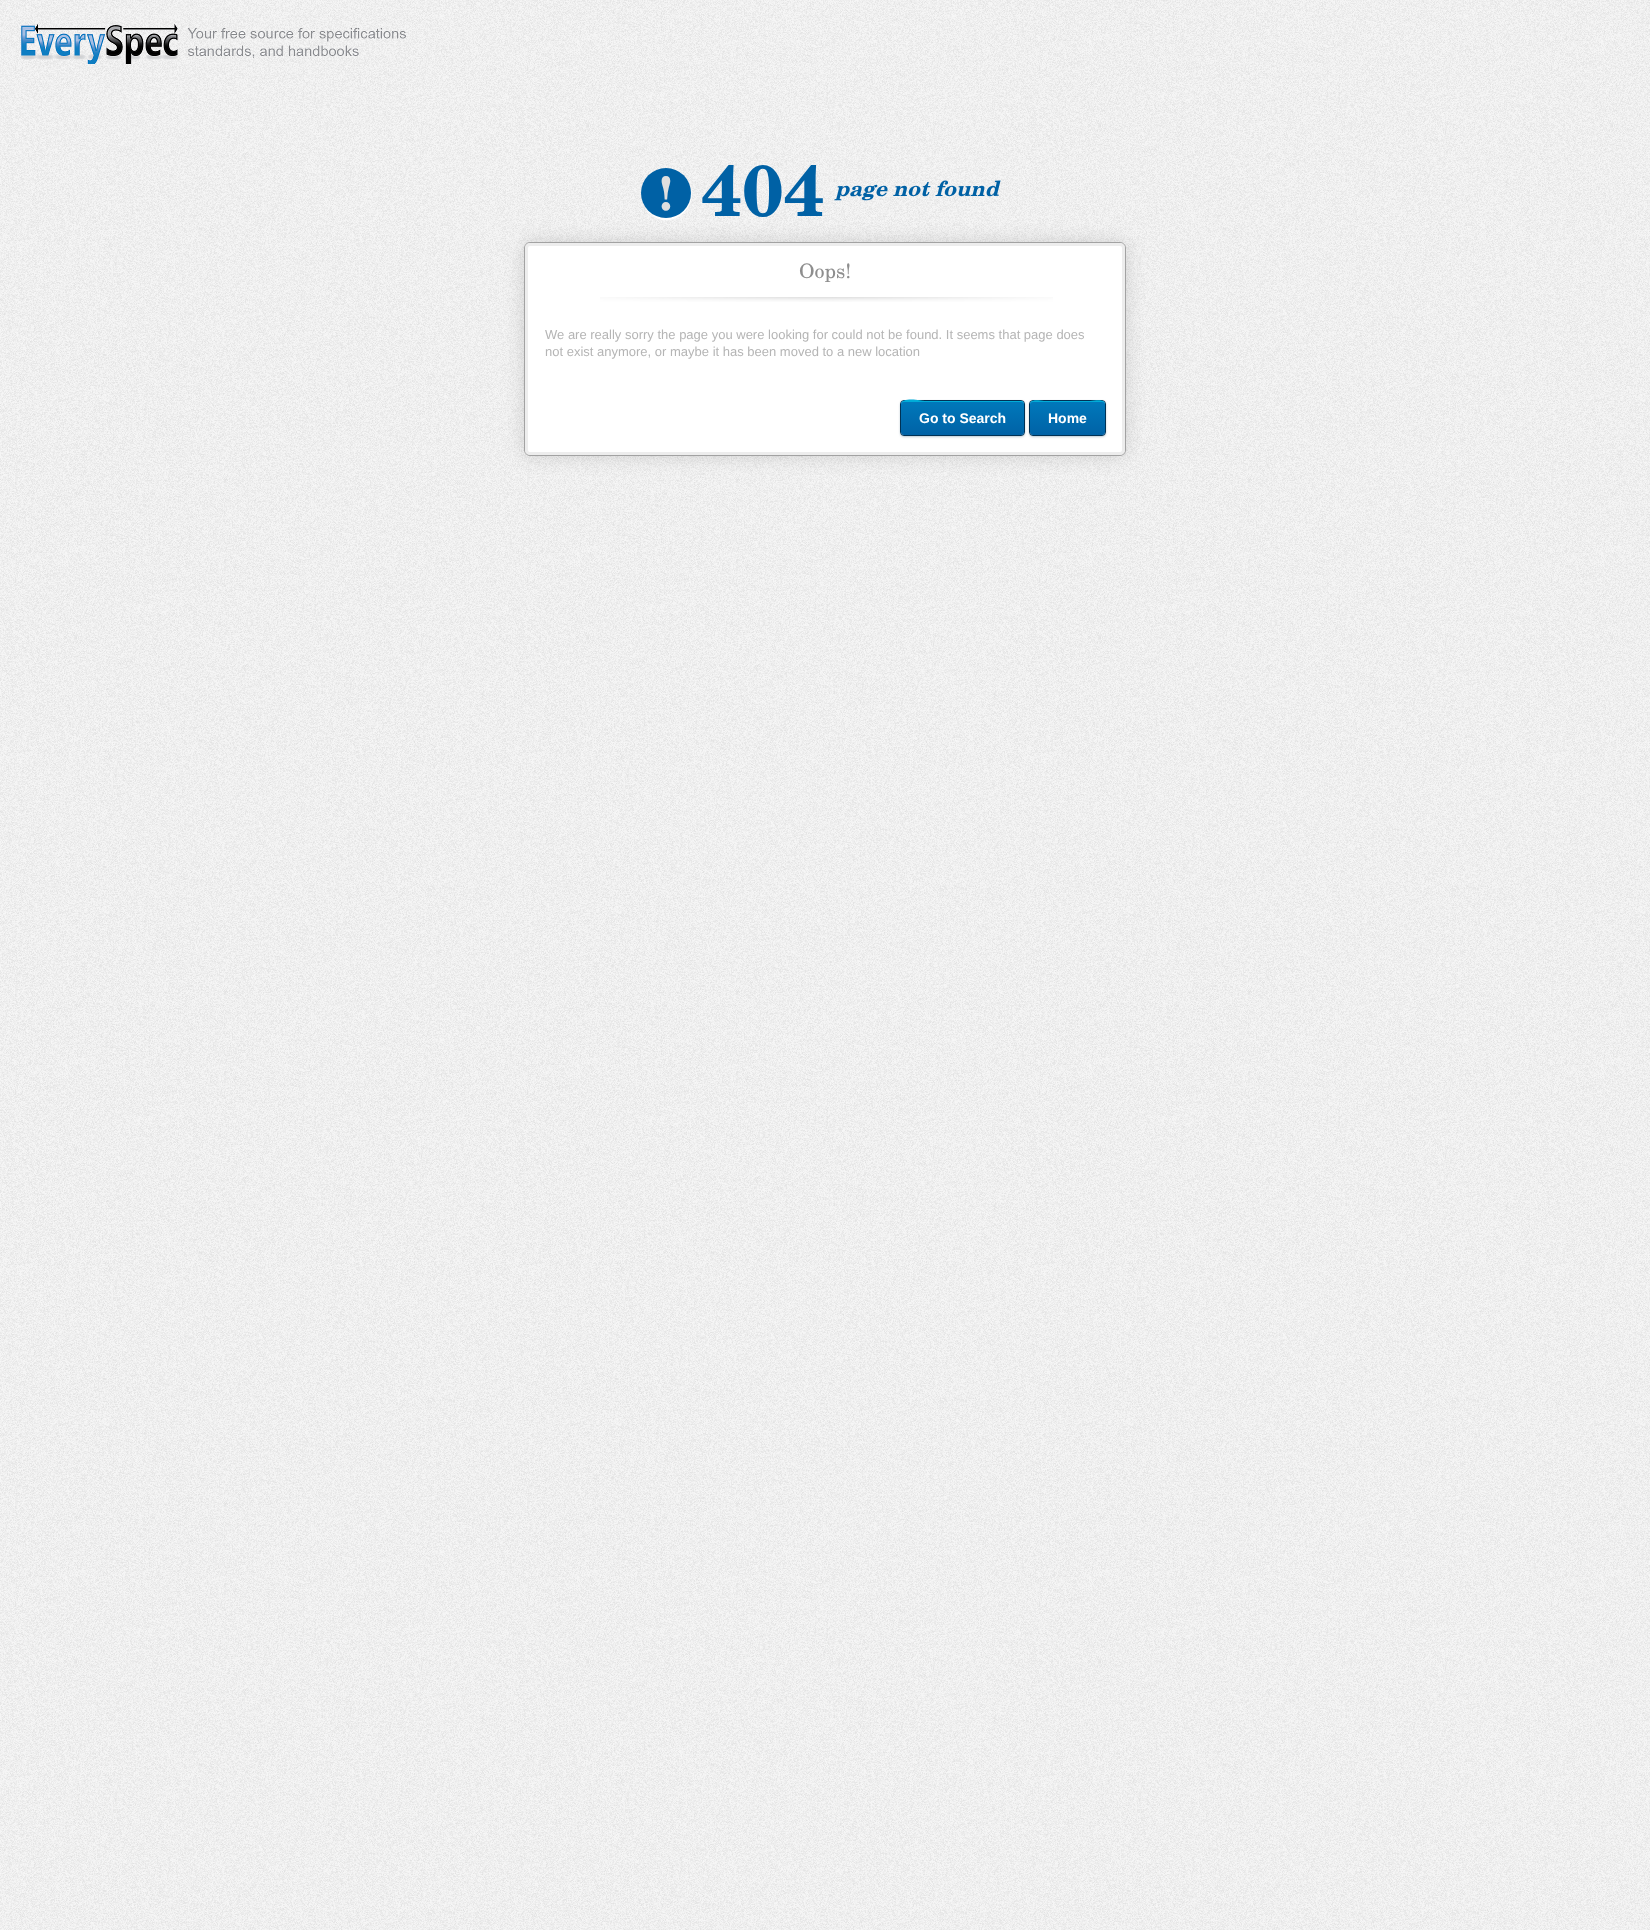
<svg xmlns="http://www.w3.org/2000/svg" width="1650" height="1930">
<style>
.a{font:bold 46px TeX Gyre Schola;fill:#dfdfdf}
.b{font:bold 72px TeX Gyre Schola;fill:#0061a5}
.c{font:italic bold 21px TeX Gyre Schola;fill:#0061a5}
.d{font:20px TeX Gyre Schola;fill:#8e8e8e}
.e{font:13px Liberation Sans;fill:#b5b5b5}
.f{font:bold 14px Liberation Sans;fill:#fff}
</style>
<defs>
<linearGradient id="g1" gradientUnits="userSpaceOnUse" x1="963" y1="435" x2="963" y2="401"><stop offset="0" stop-color="#0062a6"/><stop offset="1" stop-color="#0079bb"/></linearGradient>
<linearGradient id="g2" gradientUnits="userSpaceOnUse" x1="1068" y1="435" x2="1068" y2="401"><stop offset="0" stop-color="#0062a6"/><stop offset="1" stop-color="#0079bb"/></linearGradient>
</defs>
<rect width="100%" height="100%" fill="#fff"/>
<image href="1.png" x="0" y="0" width="1650" height="1930"/>
<image href="2.png" x="21" y="24" width="385" height="40"/>
<path fill="#fff" d="M644 205c3 6 7 10 12 13c22 10 44-15 33-35c13 28-29 50-45 22z"/>
<circle fill="#0061a5" cx="666" cy="193" r="25"/>
<rect fill="#00000026" filter="blur(10px)" x="525" y="243" width="600" height="212" rx="5"/>
<rect fill="none" stroke="#a2a2a2" x="524.5" y="242.5" width="601" height="213" rx="5.5"/>
<rect fill="#fff" stroke="#ededed" stroke-width="3" x="526.5" y="244.5" width="597" height="209" rx="3.5"/>
<image href="3.png" x="600" y="297" width="453" height="5"/>
<rect fill="#00325580" filter="blur(1.5px)" x="1030" y="402" width="75" height="34" rx="3"/>
<rect fill="none" stroke="#003255" x="1029.5" y="400.5" width="76" height="35" rx="3.5"/>
<rect fill="#00325580" filter="blur(1.5px)" x="901" y="402" width="123" height="34" rx="3"/>
<rect fill="none" stroke="#003255" x="900.5" y="400.5" width="124" height="35" rx="3.5"/>
<rect fill="url(#g1)" x="901" y="401" width="123" height="34" rx="3"/>
<path fill="#00acd8" d="M904 402h117c2 0 3 1 3 3c0-2-1-4-3-4h-97c-1 0-23-5-23 4c0-2 1-3 3-3z"/>
<rect fill="url(#g2)" x="1030" y="401" width="75" height="34" rx="3"/>
<path fill="#00acd8" d="M1033 402h69c2 0 3 1 3 3c0-7-10-4-15-4h-46c-4 0-14-3-14 4c0-2 1-3 3-3z"/>
<text class="a" x="659" y="210">!</text>
<text class="b" x="701" y="216">404</text>
<text class="c" x="835" y="196">page not found</text>
<text class="d" x="799" y="278">Oops!</text>
<text class="e" x="545" y="339">We are really sorry the page you were looking for could not be found. It seems that page does</text>
<text class="e" x="545" y="356">not exist anymore, or maybe it has been moved to a new location</text>
<text class="f" x="919" y="423">Go to Search</text>
<text class="f" x="1048" y="423">Home</text>
</svg>
